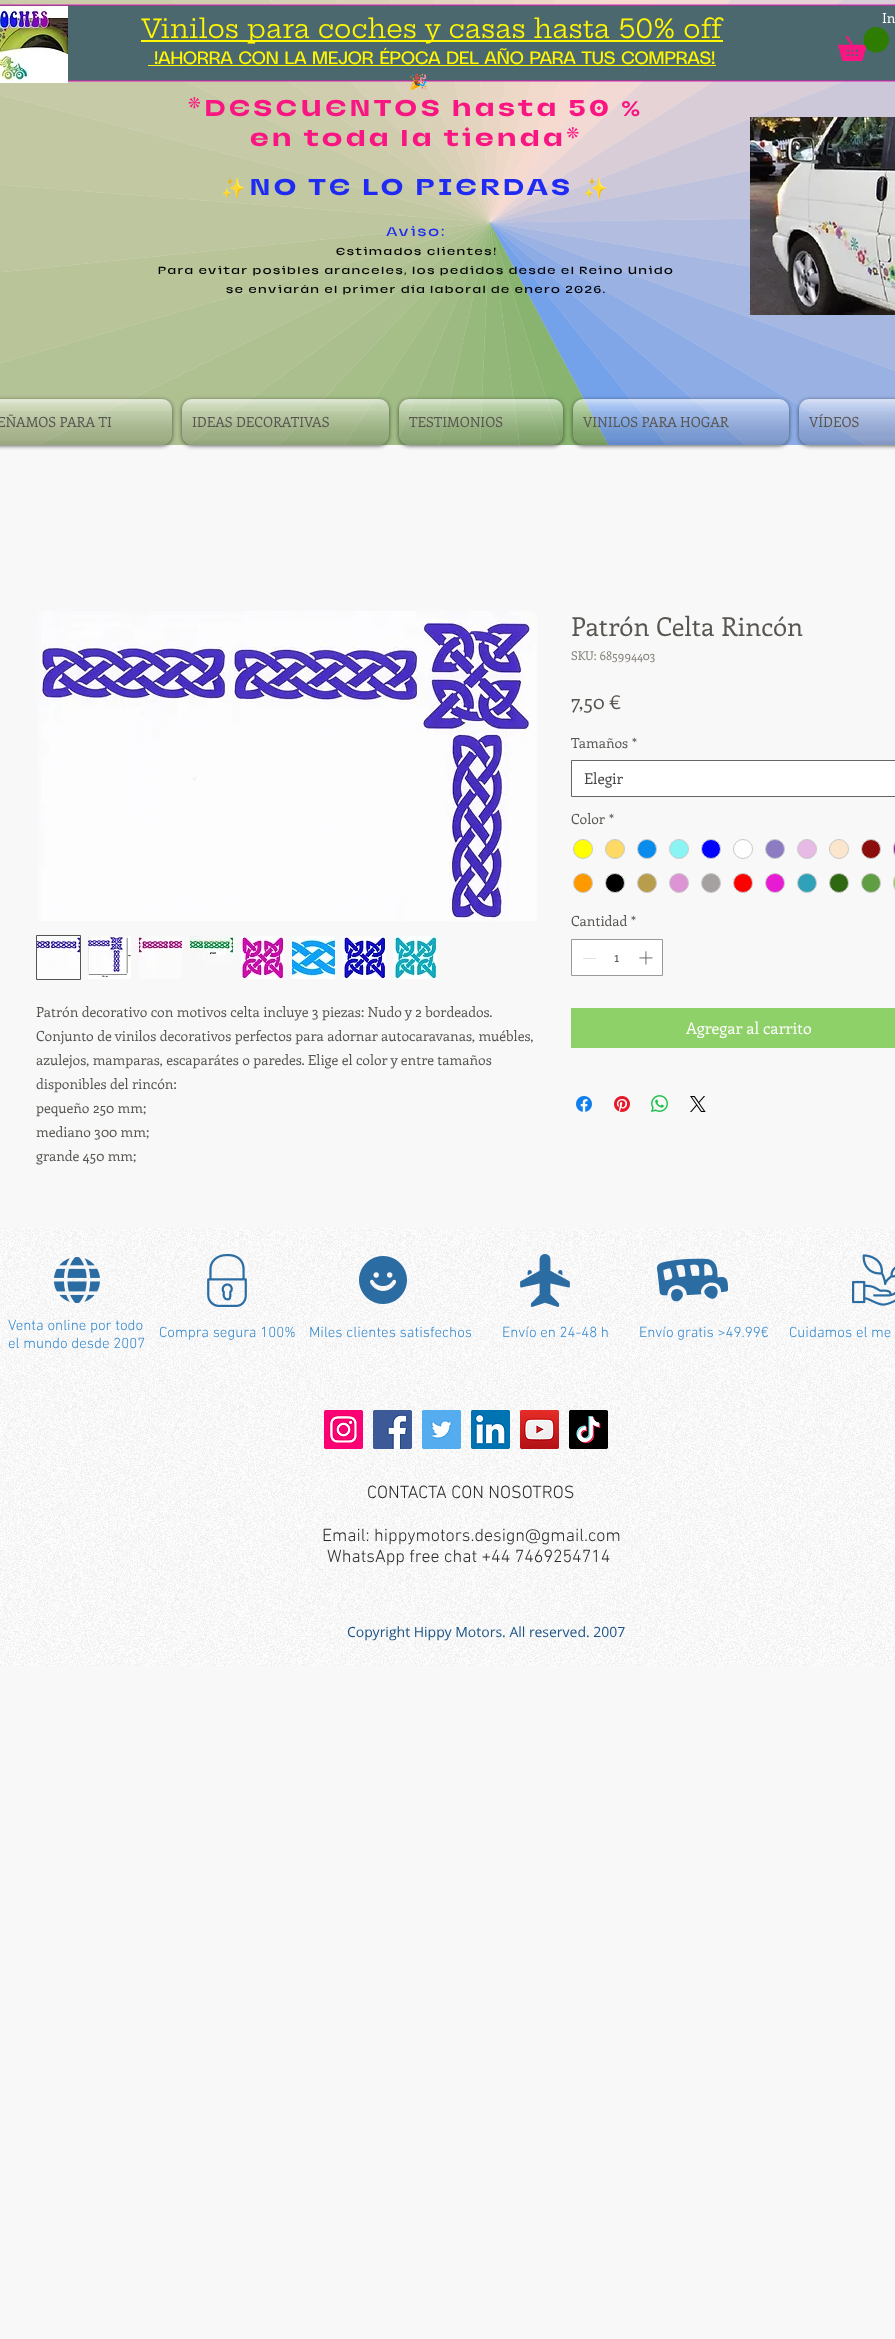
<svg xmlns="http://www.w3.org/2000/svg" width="895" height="2339">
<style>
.a{font:26px Hepta Slab;fill:#fff704}
.b{font:18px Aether;fill:#fff704}
.c{font:14px Enriqueta;fill:#fff}
.d{font:bold 15px Noto Color Emoji;letter-spacing:3px;fill:#1f2bf3}
.e{font:900 20px 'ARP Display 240';letter-spacing:4px;fill:#f91682}
.f{font:bold 20px Noto Color Emoji;letter-spacing:4px;fill:#1f2bf3}
.g{font:900 20px 'ARP Display 240';letter-spacing:4px;fill:#1f2bf3}
.h{font:bold 11px 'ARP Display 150';letter-spacing:2.25px;fill:#1f2bf3}
.i{font:bold 9px 'ARP Display 150';letter-spacing:1.8px;fill:#000}
.j{font:14px Enriqueta;fill:#585551}
.k{font:26px Enriqueta;fill:#585551}
.l{font:12px Enriqueta;fill:#848079}
.m{font:20px Enriqueta;fill:#585551}
.n{font:15px Enriqueta;fill:#444}
.o{font:16px Enriqueta;fill:#fff}
.p{font:300 15px 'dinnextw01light';fill:#3588cc}
.q{font:300 18px 'dinnextw01light';fill:#2a2a2a}
.r{font:14px Open Sans;fill:#1c5385}
</style>
<defs>
<clipPath id="clip1"><path d="M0 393h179v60h-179zm-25 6h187c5.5 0 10 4.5 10 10v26c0 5.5-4.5 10-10 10h-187c-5.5 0-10-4.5-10-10v-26c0-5.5 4.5-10 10-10z" clip-rule="evenodd"/></clipPath>
<clipPath id="clip2"><path d="M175 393h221v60h-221zm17 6h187c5.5 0 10 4.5 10 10v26c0 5.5-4.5 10-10 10h-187c-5.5 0-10-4.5-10-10v-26c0-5.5 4.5-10 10-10z" clip-rule="evenodd"/></clipPath>
<clipPath id="clip3"><path d="M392 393h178v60h-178zm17 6h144c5.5 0 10 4.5 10 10v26c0 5.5-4.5 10-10 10h-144c-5.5 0-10-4.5-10-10v-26c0-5.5 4.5-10 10-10z" clip-rule="evenodd"/></clipPath>
<clipPath id="clip4"><path d="M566 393h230v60h-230zm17 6h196c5.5 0 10 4.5 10 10v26c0 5.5-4.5 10-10 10h-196c-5.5 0-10-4.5-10-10v-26c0-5.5 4.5-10 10-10z" clip-rule="evenodd"/></clipPath>
<clipPath id="clip5"><path d="M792 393h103v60h-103zm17 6h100c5.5 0 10 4.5 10 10v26c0 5.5-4.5 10-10 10h-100c-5.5 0-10-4.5-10-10v-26c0-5.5 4.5-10 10-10z" clip-rule="evenodd"/></clipPath>
</defs>
<rect width="100%" height="100%" fill="#f8f8f8"/>
<image href="1.png" x="0" y="0" width="895" height="445"/>
<path fill="#4b686e" d="M0 5h895v76H0z"/>
<path fill="none" stroke="#e21cb7" d="M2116 5v76h-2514v-76z"/>
<image href="2.png" x="0" y="6" width="68" height="77"/>
<path fill="#fff704" d="M141 40h582v2H141z"/>
<path fill="#fff704" d="M148 65h568v1H148z"/>
<image href="3.png" x="838" y="27" width="51" height="34"/>
<image href="4.png" x="750" y="117" width="145" height="198"/>
<g clip-path="url(#clip1)">
<rect fill="#00000099" filter="blur(2px)" x="-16" y="400" width="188" height="46" rx="10"/>
</g>
<image href="5.png" x="0" y="399" width="172" height="42"/>
<image href="6.png" x="0" y="411" width="172" height="34"/>
<g clip-path="url(#clip2)">
<rect fill="#00000099" filter="blur(2px)" x="182" y="400" width="207" height="46" rx="10"/>
</g>
<image href="7.png" x="182" y="399" width="207" height="43"/>
<image href="8.png" x="182" y="411" width="207" height="34"/>
<g clip-path="url(#clip3)">
<rect fill="#00000099" filter="blur(2px)" x="399" y="400" width="164" height="46" rx="10"/>
</g>
<image href="9.png" x="399" y="399" width="164" height="44"/>
<image href="10.png" x="399" y="411" width="164" height="34"/>
<g clip-path="url(#clip4)">
<rect fill="#00000099" filter="blur(2px)" x="573" y="400" width="216" height="46" rx="10"/>
</g>
<image href="11.png" x="573" y="399" width="216" height="44"/>
<image href="12.png" x="573" y="411" width="216" height="34"/>
<g clip-path="url(#clip5)">
<rect fill="#00000099" filter="blur(2px)" x="799" y="400" width="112" height="46" rx="10"/>
</g>
<image href="13.png" x="799" y="399" width="96" height="43"/>
<image href="14.png" x="799" y="411" width="96" height="34"/>
<path fill="#fff" stroke="#666" d="M571.5 760.5h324v36H571.5z"/>
<circle fill="#ff0" stroke="#c9c9c9" cx="583" cy="849" r="9.5"/>
<circle fill="#ffd966" stroke="#c9c9c9" cx="615" cy="849" r="9.5"/>
<circle fill="#098ceb" stroke="#c9c9c9" cx="647" cy="849" r="9.5"/>
<circle fill="#8af3f3" stroke="#c9c9c9" cx="679" cy="849" r="9.5"/>
<circle fill="#0001ff" stroke="#c9c9c9" cx="711" cy="849" r="9.5"/>
<circle fill="#fff" stroke="#c9c9c9" cx="743" cy="849" r="9.5"/>
<circle fill="#8e7cc3" stroke="#c9c9c9" cx="775" cy="849" r="9.5"/>
<circle fill="#e7b9e5" stroke="#c9c9c9" cx="807" cy="849" r="9.5"/>
<circle fill="#fce5cd" stroke="#c9c9c9" cx="839" cy="849" r="9.5"/>
<circle fill="#8c0d0d" stroke="#c9c9c9" cx="871" cy="849" r="9.5"/>
<rect fill="#8c15ab" stroke="#c9c9c9" x="893.5" y="839.5" width="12" height="19" rx="9.5"/>
<circle fill="#f90" stroke="#c9c9c9" cx="583" cy="883" r="9.5"/>
<circle fill="#000" stroke="#c9c9c9" cx="615" cy="883" r="9.5"/>
<circle fill="#b79d4c" stroke="#c9c9c9" cx="647" cy="883" r="9.5"/>
<circle fill="#dc94d5" stroke="#c9c9c9" cx="679" cy="883" r="9.5"/>
<circle fill="#a6a1a1" stroke="#c9c9c9" cx="711" cy="883" r="9.5"/>
<circle fill="#f00" stroke="#c9c9c9" cx="743" cy="883" r="9.5"/>
<circle fill="#e71bd3" stroke="#c9c9c9" cx="775" cy="883" r="9.5"/>
<circle fill="#2fa2ba" stroke="#c9c9c9" cx="807" cy="883" r="9.5"/>
<circle fill="#2e6810" stroke="#c9c9c9" cx="839" cy="883" r="9.5"/>
<circle fill="#5f9e43" stroke="#c9c9c9" cx="871" cy="883" r="9.5"/>
<rect fill="#7ce74e" stroke="#c9c9c9" x="893.5" y="873.5" width="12" height="19" rx="9.5"/>
<path fill="#fff" stroke="#9b9997" d="M571.5 939.5h91v36H571.5z"/>
<path fill="#e3e3e3" d="M583 958h13v1H583z"/>
<image href="15.png" x="639" y="951" width="14" height="14"/>
<path fill="#8fd169" d="M571 1008h324v40H571z"/>
<image href="16.png" x="576" y="1096" width="16" height="16"/>
<image href="17.png" x="614" y="1096" width="16" height="16"/>
<image href="18.png" x="651" y="1095" width="17" height="17"/>
<image href="19.png" x="690" y="1096" width="16" height="16"/>
<image href="20.png" x="37" y="611" width="500" height="310"/>
<path fill="none" stroke="#585551" d="M36.5 935.5h44v44H36.5z"/>
<image href="21.png" x="37" y="936" width="43" height="43"/>
<image href="22.png" x="88" y="936" width="43" height="43"/>
<image href="23.png" x="139" y="936" width="43" height="43"/>
<image href="24.png" x="190" y="936" width="43" height="28"/>
<image href="25.png" x="241" y="936" width="43" height="43"/>
<image href="26.png" x="292" y="936" width="43" height="43"/>
<image href="27.png" x="343" y="936" width="43" height="43"/>
<image href="28.png" x="394" y="936" width="43" height="43"/>
<path fill="#fff" d="M0 1228h895v438H0z"/>
<image href="29.png" x="0" y="1228" width="895" height="438"/>
<image href="30.png" x="54" y="1257" width="46" height="46"/>
<image href="31.png" x="207" y="1254" width="40" height="53"/>
<image href="32.png" x="359" y="1256" width="48" height="48"/>
<image href="33.png" x="520" y="1254" width="50" height="53"/>
<image href="34.png" x="657" y="1258" width="71" height="44"/>
<image href="35.png" x="852" y="1254" width="43" height="52"/>
<image href="36.png" x="324" y="1410" width="39" height="39"/>
<image href="37.png" x="373" y="1410" width="39" height="39"/>
<image href="38.png" x="422" y="1410" width="39" height="39"/>
<image href="39.png" x="471" y="1410" width="39" height="39"/>
<image href="40.png" x="520" y="1410" width="39" height="39"/>
<image href="41.png" x="569" y="1410" width="39" height="39"/>
<text class="a" x="141" y="38">Vinilos para coches y casas hasta 50% off</text>
<text class="b" x="154" y="64">!AHORRA CON LA MEJOR ÉPOCA DEL AÑO PARA TUS COMPRAS!</text>
<text class="c" x="882" y="23">In</text>
<text class="d" x="409" y="87">🎉</text>
<text class="e" x="188" y="116">*DESCUENTOS hasta 50 %</text>
<text class="e" x="250" y="146">en toda la tienda*</text>
<text class="f" x="221" y="195">✨</text>
<text class="g" x="250" y="195">NO TE LO PIERDAS</text>
<text class="f" x="583" y="195">✨</text>
<text class="h" x="386" y="236">Aviso:</text>
<text class="i" x="336" y="255">Estimados clientes!</text>
<text class="i" x="158" y="274">Para evitar posibles aranceles, los pedidos desde el Reino Unido</text>
<text class="i" x="226" y="293">se enviarán el primer día laboral de enero 2026.</text>
<text class="j" x="-3" y="427">EÑAMOS PARA TI</text>
<text class="j" x="192" y="427">IDEAS DECORATIVAS</text>
<text class="j" x="409" y="427">TESTIMONIOS</text>
<text class="j" x="583" y="427">VINILOS PARA HOGAR</text>
<text class="j" x="809" y="427">VÍDEOS</text>
<text class="k" x="571" y="636">Patrón Celta Rincón</text>
<text class="l" x="571" y="660">SKU: 685994403</text>
<text class="m" x="571" y="709">7,50 €</text>
<text class="j" x="571" y="748">Tamaños</text>
<text class="j" x="632" y="748">*</text>
<text class="n" x="584" y="784">Elegir</text>
<text class="j" x="571" y="824">Color</text>
<text class="j" x="609" y="824">*</text>
<text class="j" x="571" y="926">Cantidad</text>
<text class="j" x="631" y="926">*</text>
<text class="j" x="614" y="962">1</text>
<text class="o" x="686" y="1034">Agregar al carrito</text>
<text class="j" x="36" y="1017">Patrón decorativo con motivos celta incluye 3 piezas: Nudo y 2 bordeados.</text>
<text class="j" x="36" y="1041">Conjunto de vinilos decorativos perfectos para adornar autocaravanas, muébles,</text>
<text class="j" x="36" y="1065">azulejos, mamparas, escaparátes o paredes. Elige el color y entre tamaños</text>
<text class="j" x="36" y="1089">disponibles del rincón:</text>
<text class="j" x="36" y="1113">pequeño 250 mm;</text>
<text class="j" x="36" y="1137">mediano 300 mm;</text>
<text class="j" x="36" y="1161">grande 450 mm;</text>
<text class="p" x="8" y="1330">Venta online por todo</text>
<text class="p" x="8" y="1348">el mundo desde 2007</text>
<text class="p" x="159" y="1337">Compra segura 100%</text>
<text class="p" x="309" y="1337">Miles clientes satisfechos</text>
<text class="p" x="502" y="1337">Envío en 24-48 h</text>
<text class="p" x="639" y="1337">Envío gratis &gt;49.99€</text>
<text class="p" x="789" y="1337">Cuidamos el me</text>
<text class="q" x="367" y="1498">CONTACTA CON NOSOTROS</text>
<text class="q" x="322" y="1541">Email: hippymotors.design@gmail.com</text>
<text class="q" x="327" y="1562">WhatsApp free chat +44 7469254714</text>
<text class="r" x="347" y="1637">Copyright Hippy Motors. All reserved. 2007</text>
</svg>
